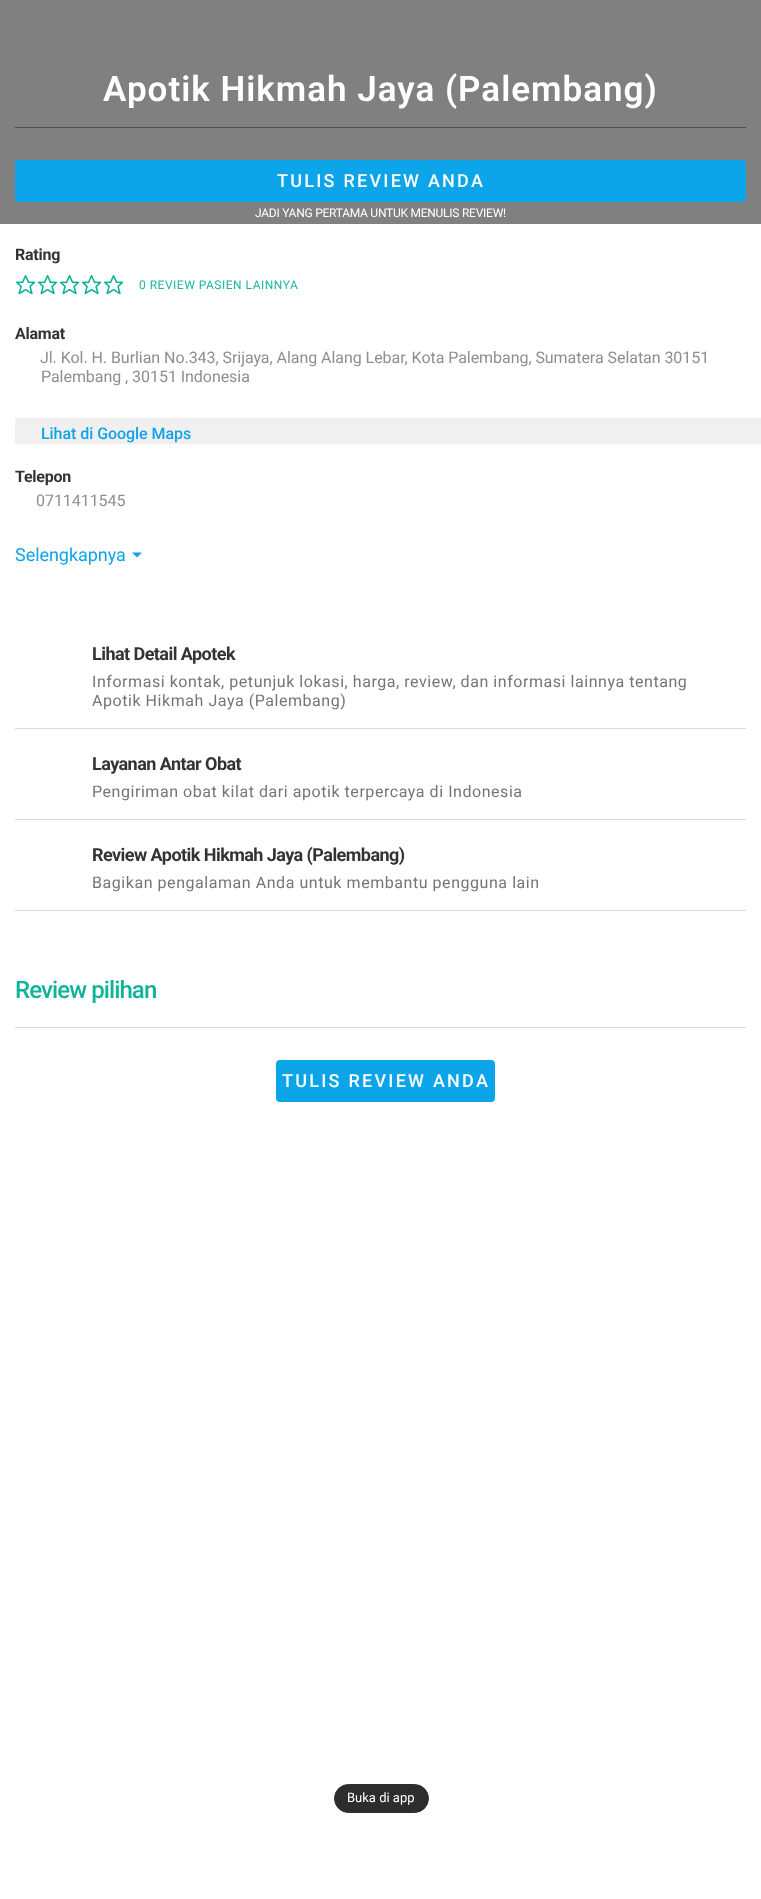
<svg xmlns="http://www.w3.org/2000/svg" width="761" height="1899">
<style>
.a{font:600 35px Roboto;letter-spacing:1px;fill:#fff}
.b{font:500 18px Roboto;letter-spacing:2.25px;fill:#fff}
.c{font:12px Roboto;letter-spacing:-0.25px;fill:#fff}
.d{font:bold 16px Roboto;letter-spacing:-0.25px;fill:#333}
.e{font:12px Roboto;letter-spacing:0.5px;fill:#1ab79c}
.f{font:16px Roboto;letter-spacing:-0.05px;fill:#8e8e8e}
.g{font:500 16px Roboto;letter-spacing:-0.05px;fill:#10a3e8}
.h{font:18px Roboto;letter-spacing:-0.05px;fill:#10a3e8}
.i{font:bold 18px Roboto;letter-spacing:-0.55px;fill:#333}
.j{font:16px Roboto;letter-spacing:0.55px;fill:#757575}
.k{font:500 24px Roboto;letter-spacing:-0.9px;fill:#0fb396}
.l{font:13px Roboto;fill:#fff}
</style>
<rect width="100%" height="100%" fill="#fff"/>
<path fill="#808080" d="M0 0h761v224H0z"/>
<path fill="#4e5056" d="M15 127h731v1H15z"/>
<rect fill="#0ca5ea" x="15" y="160" width="731" height="42" rx="4"/>
<image href="1.png" x="16" y="275" width="20" height="20"/>
<image href="1.png" x="38" y="275" width="20" height="20"/>
<image href="1.png" x="60" y="275" width="20" height="20"/>
<image href="1.png" x="82" y="275" width="20" height="20"/>
<image href="1.png" x="104" y="275" width="20" height="20"/>
<path fill="#f0f0f0" d="M15 418h746v26H15z"/>
<path fill="#10a3e8" d="M132 552.5h10l-5 5z"/>
<path fill="#d9d9d9" d="M15 728h731v1H15z"/>
<path fill="#d9d9d9" d="M15 819h731v1H15z"/>
<path fill="#d9d9d9" d="M15 910h731v1H15z"/>
<path fill="#d9d9d9" d="M15 1027h731v1H15z"/>
<rect fill="#0ca5ea" x="276" y="1060" width="219" height="42" rx="4"/>
<rect fill="#2d2d2d" stroke="#2d2d2d" x="334.5" y="1784.5" width="94" height="28" rx="14"/>
<text class="a" x="103" y="101">Apotik Hikmah Jaya (Palembang)</text>
<text class="b" x="277" y="187">TULIS REVIEW ANDA</text>
<text class="c" x="255" y="217">JADI YANG PERTAMA UNTUK MENULIS REVIEW!</text>
<text class="d" x="15" y="260">Rating</text>
<text class="e" x="139" y="289">0 REVIEW PASIEN LAINNYA</text>
<text class="d" x="15" y="339">Alamat</text>
<text class="f" x="40" y="363">Jl. Kol. H. Burlian No.343, Srijaya, Alang Alang Lebar, Kota Palembang, Sumatera Selatan 30151</text>
<text class="f" x="41" y="382">Palembang , 30151 Indonesia</text>
<text class="g" x="41" y="439">Lihat di Google Maps</text>
<text class="d" x="15" y="482">Telepon</text>
<text class="f" x="36" y="506">0711411545</text>
<text class="h" x="15" y="561">Selengkapnya</text>
<text class="i" x="92" y="660">Lihat Detail Apotek</text>
<text class="j" x="92" y="687">Informasi kontak, petunjuk lokasi, harga, review, dan informasi lainnya tentang</text>
<text class="j" x="92" y="706">Apotik Hikmah Jaya (Palembang)</text>
<text class="i" x="92" y="770">Layanan Antar Obat</text>
<text class="j" x="92" y="797">Pengiriman obat kilat dari apotik terpercaya di Indonesia</text>
<text class="i" x="92" y="861">Review Apotik Hikmah Jaya (Palembang)</text>
<text class="j" x="92" y="888">Bagikan pengalaman Anda untuk membantu pengguna lain</text>
<text class="k" x="15" y="998">Review pilihan</text>
<text class="b" x="282" y="1087">TULIS REVIEW ANDA</text>
<text class="l" x="347" y="1802">Buka di app</text>
</svg>
